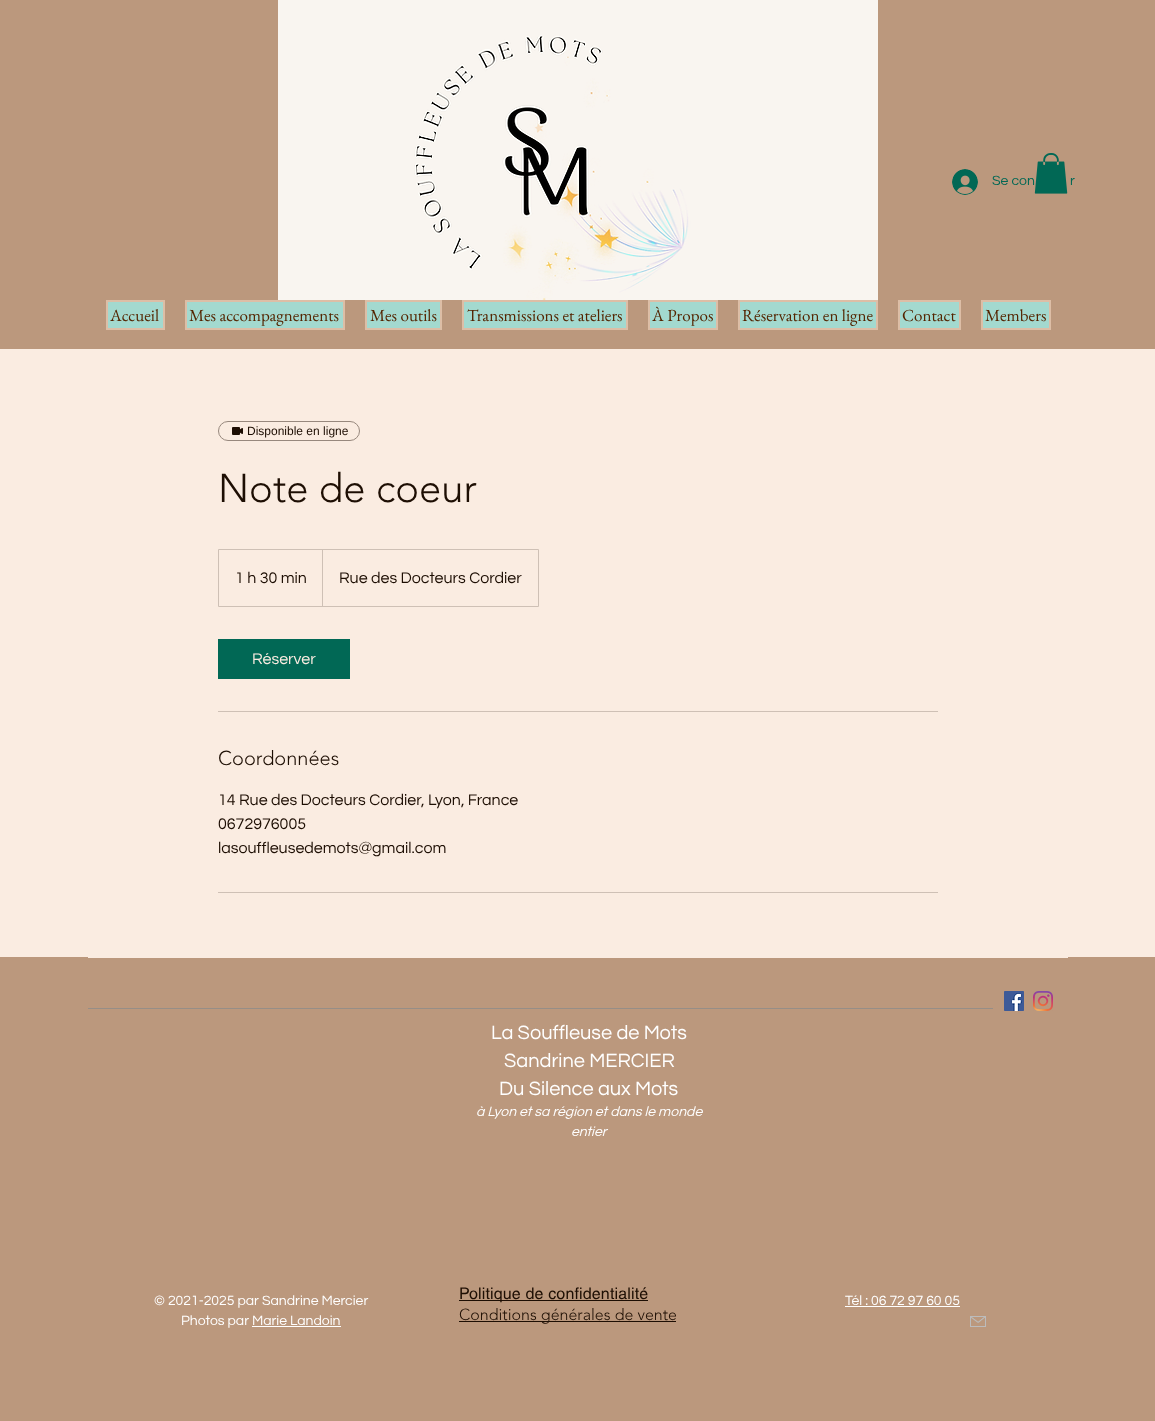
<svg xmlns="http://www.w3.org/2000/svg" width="1155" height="1421">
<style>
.a{font:14px Questrial;fill:#016855}
.b{font:17px EB Garamond;fill:#542400}
.c{font:12px Liberation Sans;fill:#1d0e03}
.d{font:300 40px 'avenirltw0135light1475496';fill:#1d0e03}
.e{font:16px Questrial;fill:#1d0e03}
.f{font:16px Questrial;fill:#faece1}
.g{font:300 20px 'avenirltw0135light1475496';fill:#1d0e03}
.h{font:20px Questrial;fill:#fff}
.i{font:italic 14px Questrial;fill:#fff}
.j{font:14px Questrial;fill:#fff}
.k{font:16px helvetica;letter-spacing:0.15px;fill:#1d0e03}
.l{font:300 16px 'avenirltw0135light1475496';fill:#1d0e03}
</style>
<rect width="100%" height="100%" fill="#bb987d"/>
<image href="1.png" x="278" y="0" width="600" height="300"/>
<image href="2.png" x="1034" y="153" width="34" height="41"/>
<image href="3.png" x="952" y="169" width="26" height="26"/>
<path fill="#a3d9cf" stroke="#ddbea6" stroke-width="2" d="M107 301h57v28H107z"/>
<path fill="#a3d9cf" stroke="#ddbea6" stroke-width="2" d="M186 301h158v28H186z"/>
<path fill="#a3d9cf" stroke="#ddbea6" stroke-width="2" d="M366 301h75v28H366z"/>
<path fill="#a3d9cf" stroke="#ddbea6" stroke-width="2" d="M463 301h164v28H463z"/>
<path fill="#a3d9cf" stroke="#ddbea6" stroke-width="2" d="M649 301h68v28H649z"/>
<path fill="#a3d9cf" stroke="#ddbea6" stroke-width="2" d="M739 301h138v28H739z"/>
<path fill="#a3d9cf" stroke="#ddbea6" stroke-width="2" d="M899 301h61v28H899z"/>
<path fill="#a3d9cf" stroke="#ddbea6" stroke-width="2" d="M982 301h68v28H982z"/>
<path fill="#faece1" d="M0 349h1155v608H0z"/>
<rect fill="none" stroke="#97887d" x="218.5" y="421.5" width="141" height="19" rx="9.5"/>
<image href="4.png" x="232" y="427" width="11" height="8"/>
<path fill="none" stroke="#cec0b5" d="M218.5 549.5h320v57H218.5z"/>
<path fill="#cec0b5" d="M322 606v-57l1 1v56z"/>
<path fill="#016855" d="M218 639h132v40H218z"/>
<path fill="#cec0b5" d="M218 711h720v1H218z"/>
<path fill="#cec0b5" d="M218 892h720v1H218z"/>
<path fill="#faece1" d="M88 957h980v1H88z"/>
<path fill="#968e87" d="M88 1008h905v1H88z"/>
<image href="5.png" x="1004" y="991" width="20" height="20"/>
<image href="6.png" x="1033" y="991" width="20" height="20"/>
<path fill="#fff" d="M252 1326h89v1H252z"/>
<path fill="#1d0e03" d="M459 1300h189v1H459z"/>
<path fill="#1d0e03" d="M459 1321h217v1H459z"/>
<path fill="#fff" d="M845 1306h115v1H845z"/>
<image href="7.png" x="970" y="1316" width="16" height="11"/>
<text class="a" x="992" y="185">Se con</text>
<text class="a" x="1070" y="185">r</text>
<text class="b" x="110" y="321">Accueil</text>
<text class="b" x="189" y="321">Mes accompagnements</text>
<text class="b" x="370" y="321">Mes outils</text>
<text class="b" x="467" y="321">Transmissions et ateliers</text>
<text class="b" x="652" y="321">À Propos</text>
<text class="b" x="742" y="321">Réservation en ligne</text>
<text class="b" x="902" y="321">Contact</text>
<text class="b" x="985" y="321">Members</text>
<text class="c" x="247" y="435">Disponible en ligne</text>
<text class="d" x="218" y="502">Note de coeur</text>
<text class="e" x="235" y="583">1 h 30 min</text>
<text class="e" x="339" y="583">Rue des Docteurs Cordier</text>
<text class="f" x="252" y="664">Réserver</text>
<text class="g" x="218" y="765">Coordonnées</text>
<text class="e" x="218" y="805">14 Rue des Docteurs Cordier, Lyon, France</text>
<text class="e" x="218" y="829">0672976005</text>
<text class="e" x="218" y="853">lasouffleusedemots@gmail.com</text>
<text class="h" x="491" y="1039">La Souffleuse de Mots</text>
<text class="h" x="504" y="1067">Sandrine MERCIER</text>
<text class="h" x="499" y="1095">Du Silence aux Mots</text>
<text class="i" x="476" y="1116">à Lyon et sa région et dans le monde</text>
<text class="i" x="571" y="1136">entier</text>
<text class="j" x="154" y="1305">© 2021-2025 par Sandrine Mercier</text>
<text class="j" x="181" y="1325">Photos par Marie Landoin</text>
<text class="k" x="459" y="1299">Politique de confidentialité</text>
<text class="l" x="459" y="1320">Conditions générales de vente</text>
<text class="j" x="845" y="1305">Tél : 06 72 97 60 05</text>
</svg>
